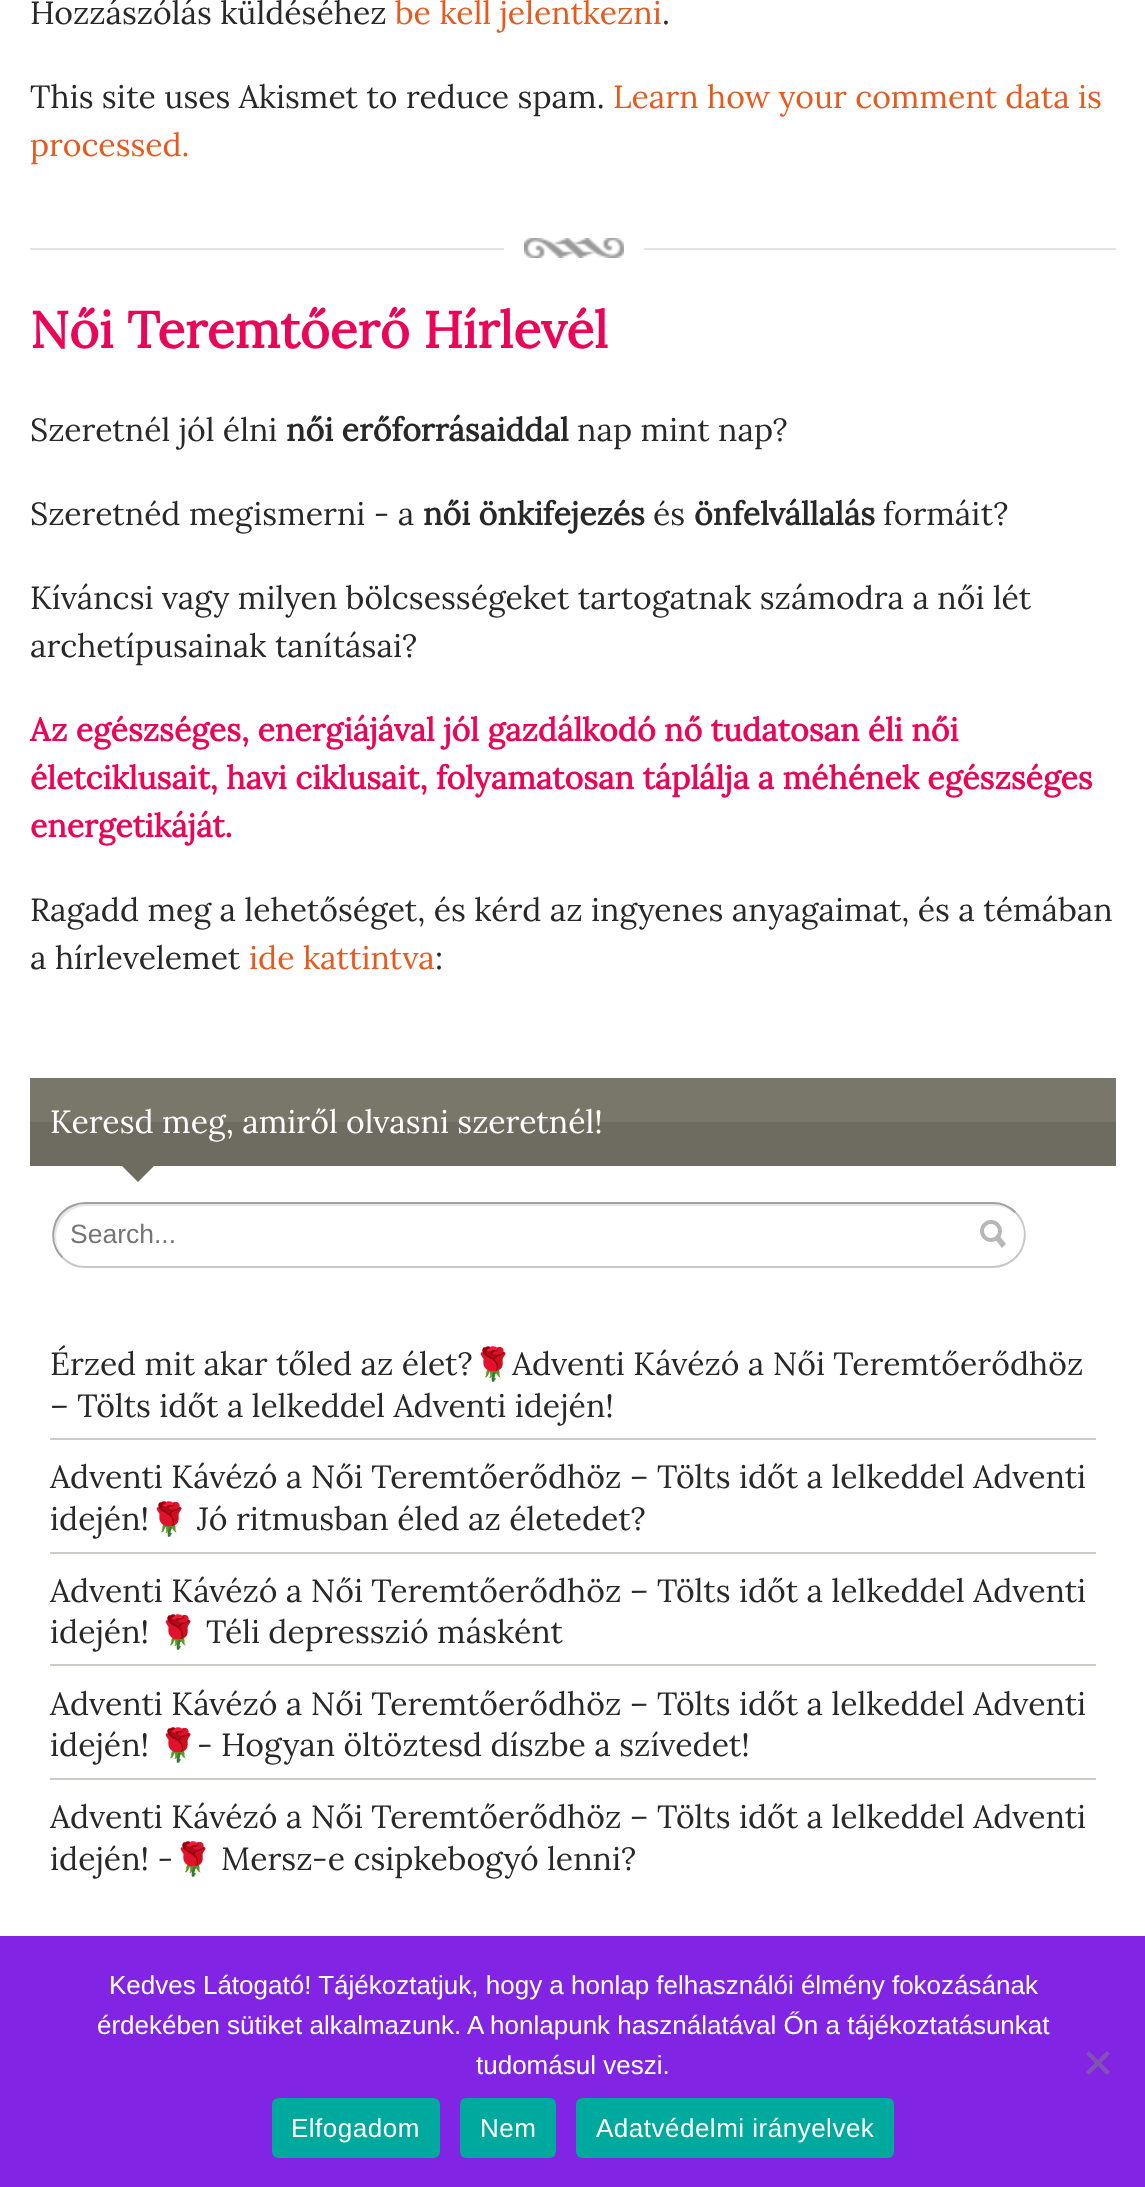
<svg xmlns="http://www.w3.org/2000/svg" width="1145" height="2187">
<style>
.a{font:32px Lora;fill:#282828}
.b{font:32px Lora;fill:#e65a1e}
.c{font:bold 51.25px Lora;fill:#eb0559}
.d{font:bold 32px Lora;fill:#282828}
.e{font:bold 32px Lora;fill:#eb0559}
.f{font:32px Lora;fill:#fff}
.g{font:26.5px Liberation Sans;fill:#757575}
.h{font:32px Noto Color Emoji;fill:#282828}
.i{font:26px Liberation Sans;fill:#fff}
.j{font:26px Liberation Sans;letter-spacing:0.5px;fill:#fff}
</style>
<rect width="100%" height="100%" fill="#fff"/>
<path fill="#e5e3e1" d="M30 248h1086v2H30z"/>
<rect fill="#fff" x="504" y="222" width="140" height="52" rx="20"/>
<image href="1.png" x="524" y="238" width="100" height="20"/>
<path fill="#79766a" d="M30 1078h1086v44H30z"/>
<path fill="#6e6b60" d="M30 1122h1086v44H30z"/>
<path fill="#6e6b60" d="M122 1166h32l-16 16z"/>
<path fill="#e6e6e6" d="M87 1206h908c8 0 16 3 21 9c-5-7-14-11-23-11h-908c-29 0-41 36-20 54c-19-19-5-52 22-52z"/>
<path fill="none" stroke="#c7c7c7" stroke-width="2" d="M1015.5 1212.5c16 15.5 10.5 43.5-10.5 52c-3.5 1.5-8 2.5-12 2.5h-908c-8.5 0-16.5-3.5-22.5-9.5"/>
<path fill="none" stroke="#a0a0a0" stroke-width="2" d="M62.5 1257.5c-16-15.5-10.5-43.5 10.5-52c3.5-1.5 8-2.5 12-2.5h908c8.5 0 16.5 3.5 22.5 9.5"/>
<image href="2.png" x="980" y="1220" width="26" height="28"/>
<path fill="#cdcbc5" d="M50 1438h1046v2H50z"/>
<path fill="#cdcbc5" d="M50 1552h1046v2H50z"/>
<path fill="#cdcbc5" d="M50 1664h1046v2H50z"/>
<path fill="#cdcbc5" d="M50 1778h1046v2H50z"/>
<path fill="#8224e3" d="M0 1936h1145v251H0z"/>
<path fill="#8152b2" d="M1107 2051l3 3l-21 21l-3-3z"/>
<path fill="#8152b2" d="M1086 2054l3-3l21 21l-3 3z"/>
<rect fill="#00a99d" x="272" y="2098" width="168" height="60" rx="6"/>
<rect fill="#00a99d" x="460" y="2098" width="96" height="60" rx="6"/>
<rect fill="#00a99d" x="576" y="2098" width="318" height="60" rx="6"/>
<text class="a" x="30" y="24">Hozzászólás küldéséhez</text>
<text class="b" x="395" y="24">be kell jelentkezni</text>
<text class="a" x="662" y="24">.</text>
<text class="a" x="30" y="108">This site uses Akismet to reduce spam.</text>
<text class="b" x="613" y="108">Learn how your comment data is</text>
<text class="b" x="30" y="156">processed.</text>
<text class="c" x="30" y="348">Női Teremtőerő Hírlevél</text>
<text class="a" x="30" y="441">Szeretnél jól élni</text>
<text class="d" x="286" y="441">női erőforrásaiddal</text>
<text class="a" x="577" y="441">nap mint nap?</text>
<text class="a" x="30" y="525">Szeretnéd megismerni - a</text>
<text class="d" x="423" y="525">női önkifejezés</text>
<text class="a" x="653" y="525">és</text>
<text class="d" x="694" y="525">önfelvállalás</text>
<text class="a" x="883" y="525">formáit?</text>
<text class="a" x="30" y="609">Kíváncsi vagy milyen bölcsességeket tartogatnak számodra a női lét</text>
<text class="a" x="30" y="657">archetípusainak tanításai?</text>
<text class="e" x="30" y="741">Az egészséges, energiájával jól gazdálkodó nő tudatosan éli női</text>
<text class="e" x="30" y="789">életciklusait, havi ciklusait, folyamatosan táplálja a méhének egészséges</text>
<text class="e" x="30" y="837">energetikáját.</text>
<text class="a" x="30" y="921">Ragadd meg a lehetőséget, és kérd az ingyenes anyagaimat, és a témában</text>
<text class="a" x="30" y="969">a hírlevelemet</text>
<text class="b" x="249" y="969">ide kattintva</text>
<text class="a" x="435" y="969">:</text>
<text class="f" x="50" y="1133">Keresd meg, amiről olvasni szeretnél!</text>
<text class="g" x="70" y="1243">Search...</text>
<text class="a" x="50" y="1375">Érzed mit akar tőled az élet?</text>
<text class="h" x="473" y="1375">🌹</text>
<text class="a" x="512" y="1375">Adventi Kávézó a Női Teremtőerődhöz</text>
<text class="a" x="50" y="1417">– Tölts időt a lelkeddel Adventi idején!</text>
<text class="a" x="50" y="1488">Adventi Kávézó a Női Teremtőerődhöz – Tölts időt a lelkeddel Adventi</text>
<text class="a" x="50" y="1530">idején!</text>
<text class="h" x="149" y="1530">🌹</text>
<text class="a" x="197" y="1530">Jó ritmusban éled az életedet?</text>
<text class="a" x="50" y="1602">Adventi Kávézó a Női Teremtőerődhöz – Tölts időt a lelkeddel Adventi</text>
<text class="a" x="50" y="1643">idején!</text>
<text class="h" x="158" y="1643">🌹</text>
<text class="a" x="206" y="1643">Téli depresszió másként</text>
<text class="a" x="50" y="1715">Adventi Kávézó a Női Teremtőerődhöz – Tölts időt a lelkeddel Adventi</text>
<text class="a" x="50" y="1756">idején!</text>
<text class="h" x="158" y="1756">🌹</text>
<text class="a" x="197" y="1756">- Hogyan öltöztesd díszbe a szívedet!</text>
<text class="a" x="50" y="1828">Adventi Kávézó a Női Teremtőerődhöz – Tölts időt a lelkeddel Adventi</text>
<text class="a" x="50" y="1870">idején! -</text>
<text class="h" x="173" y="1870">🌹</text>
<text class="a" x="221" y="1870">Mersz-e csipkebogyó lenni?</text>
<text class="i" x="109" y="1994">Kedves Látogató! Tájékoztatjuk, hogy a honlap felhasználói élmény fokozásának</text>
<text class="i" x="97" y="2034">érdekében sütiket alkalmazunk. A honlapunk használatával Őn a tájékoztatásunkat</text>
<text class="i" x="476" y="2074">tudomásul veszi.</text>
<text class="j" x="291" y="2137">Elfogadom</text>
<text class="j" x="480" y="2137">Nem</text>
<text class="j" x="596" y="2137">Adatvédelmi irányelvek</text>
</svg>
